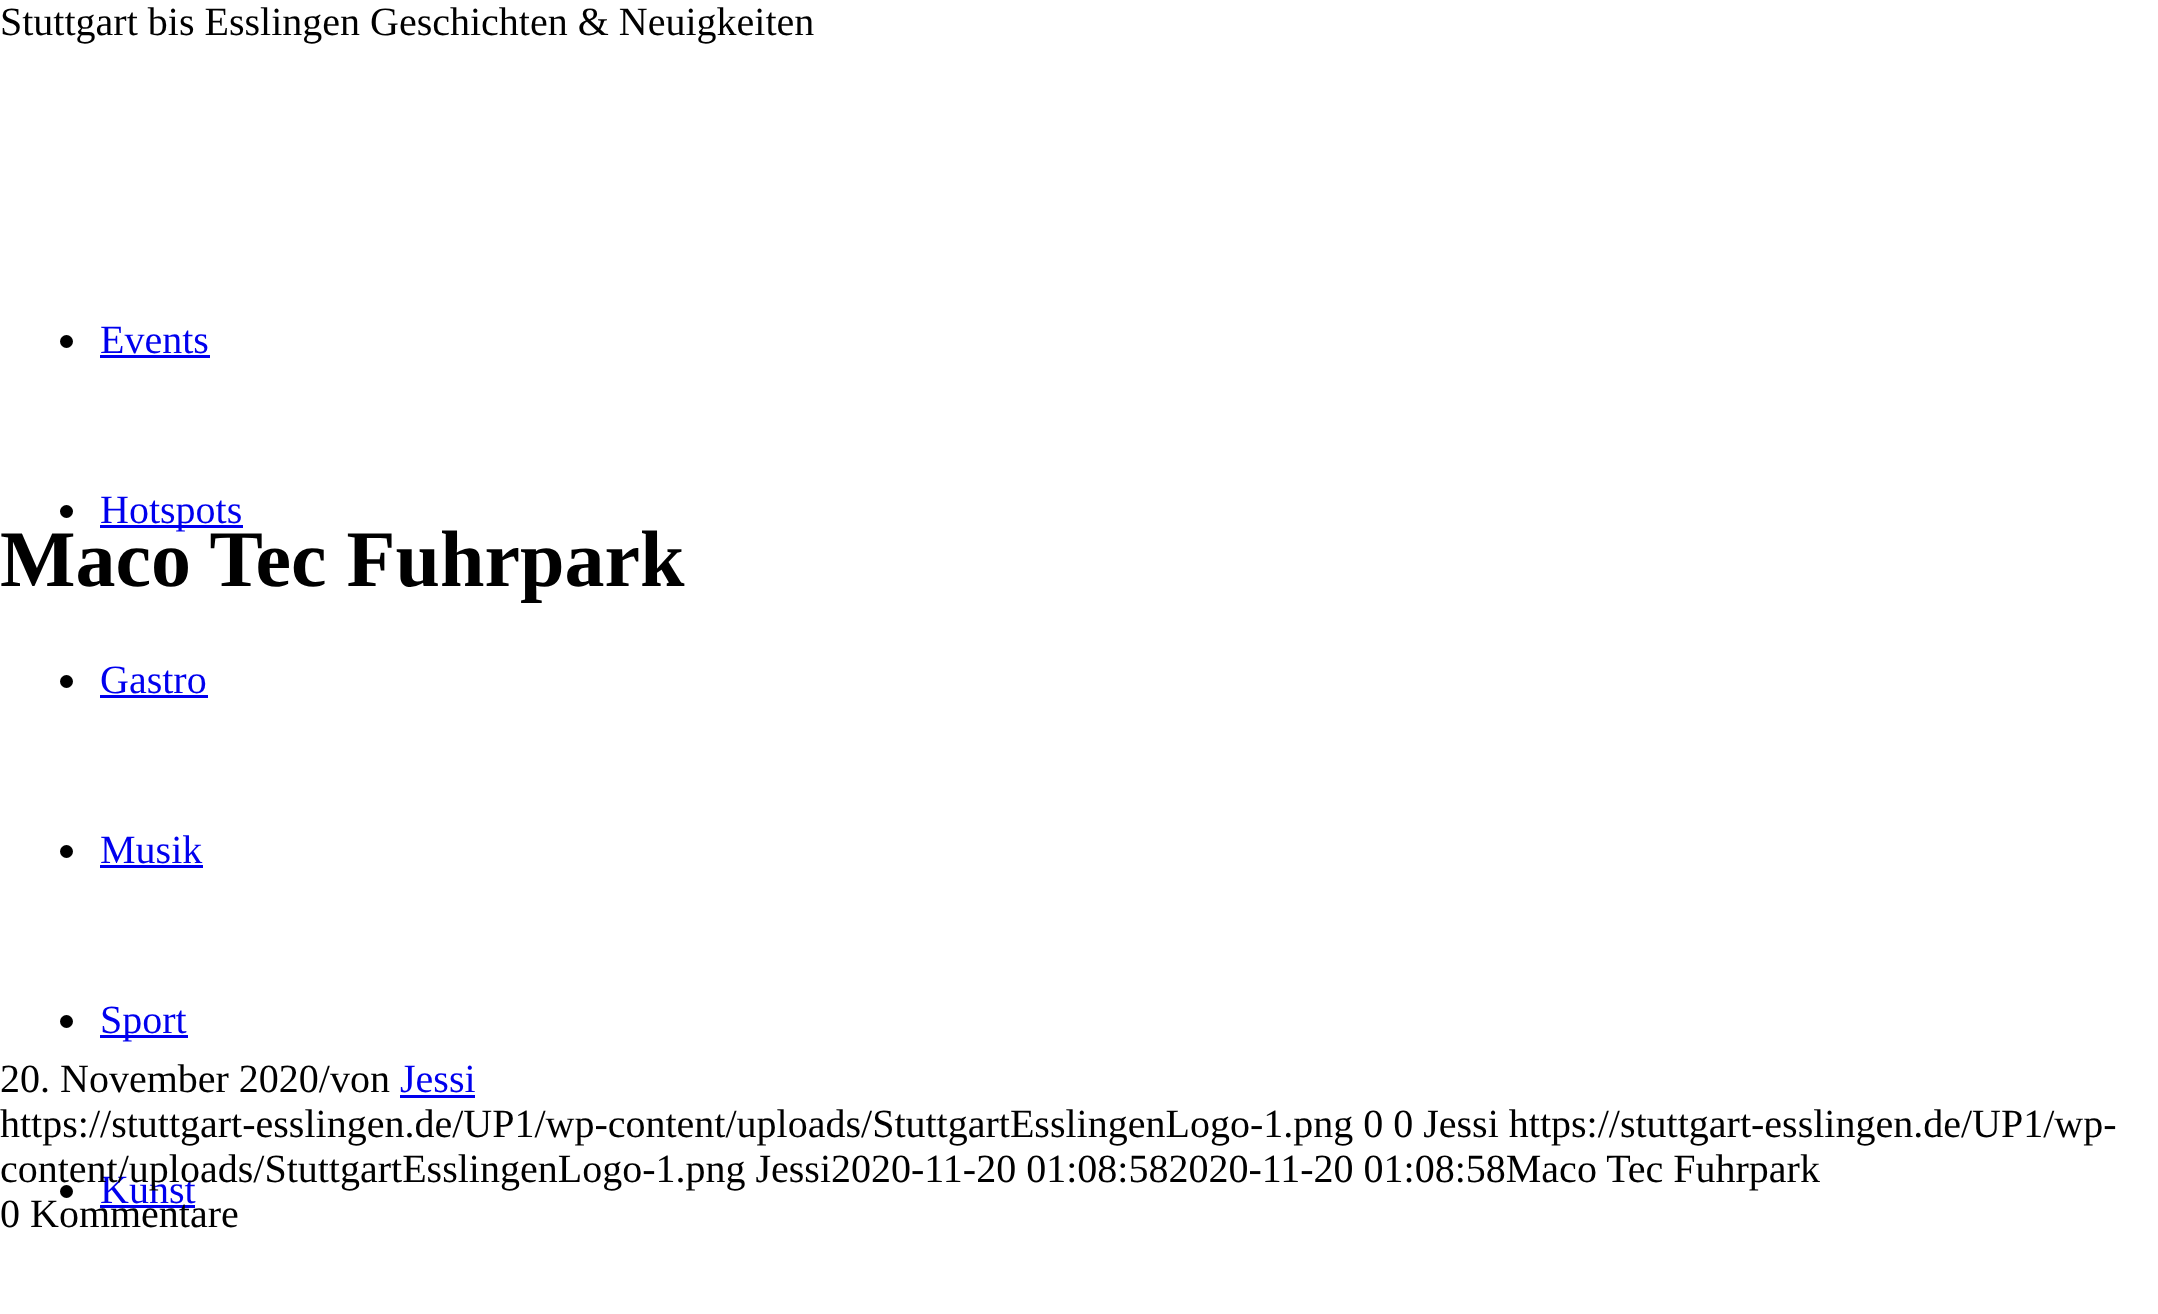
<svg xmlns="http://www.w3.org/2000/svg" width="2158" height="1314">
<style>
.a{font:40px Liberation Serif;fill:#000}
.b{font:40px Liberation Serif;fill:#00e}
.c{font:bold 80px Liberation Serif;fill:#000}
</style>
<rect width="100%" height="100%" fill="#fff"/>
<circle fill="#000" cx="66.5" cy="341.5" r="6.5"/>
<path fill="#00e" d="M100 355h110v3H100z"/>
<circle fill="#000" cx="66.5" cy="511.5" r="6.5"/>
<path fill="#00e" d="M100 525h143v3H100z"/>
<circle fill="#000" cx="66.5" cy="681.5" r="6.5"/>
<path fill="#00e" d="M100 695h108v3H100z"/>
<circle fill="#000" cx="66.5" cy="851.5" r="6.5"/>
<path fill="#00e" d="M100 865h103v3H100z"/>
<circle fill="#000" cx="66.5" cy="1021.5" r="6.5"/>
<path fill="#00e" d="M100 1035h88v3H100z"/>
<circle fill="#000" cx="66.5" cy="1191.5" r="6.5"/>
<path fill="#00e" d="M100 1205h95v3H100z"/>
<path fill="#00e" d="M400 1095h75v3H400z"/>
<text class="a" x="0" y="35">Stuttgart bis Esslingen Geschichten &amp; Neuigkeiten</text>
<text class="b" x="100" y="353">Events</text>
<text class="b" x="100" y="523">Hotspots</text>
<text class="b" x="100" y="693">Gastro</text>
<text class="b" x="100" y="863">Musik</text>
<text class="b" x="100" y="1033">Sport</text>
<text class="b" x="100" y="1203">Kunst</text>
<text class="c" x="0" y="586">Maco Tec Fuhrpark</text>
<text class="a" x="0" y="1092">20. November 2020/von</text>
<text class="b" x="400" y="1092">Jessi</text>
<text class="a" x="0" y="1137">https://stuttgart-esslingen.de/UP1/wp-content/uploads/StuttgartEsslingenLogo-1.png 0 0 Jessi https://stuttgart-esslingen.de/UP1/wp-</text>
<text class="a" x="0" y="1182">content/uploads/StuttgartEsslingenLogo-1.png Jessi2020-11-20 01:08:582020-11-20 01:08:58Maco Tec Fuhrpark</text>
<text class="a" x="0" y="1227">0 Kommentare</text>
</svg>
